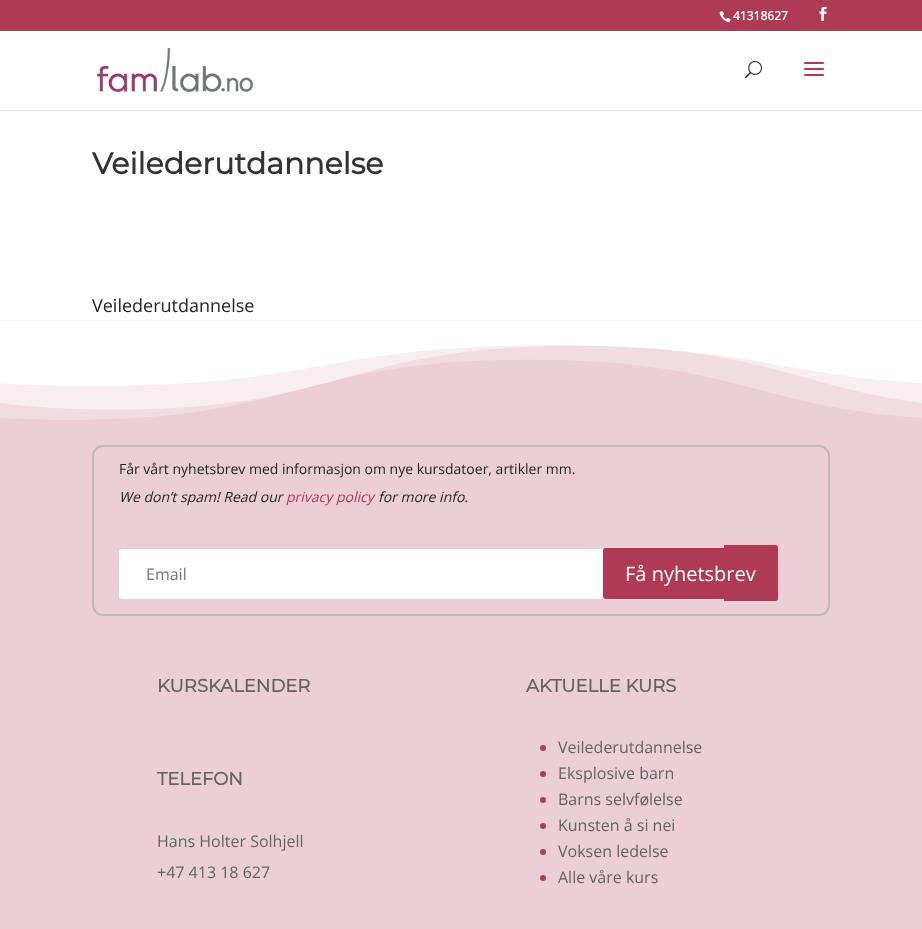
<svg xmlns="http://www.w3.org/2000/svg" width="922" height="929">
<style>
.a{font:bold 12px Open Sans;fill:#fff}
.b{font:bold 30px Montserrat;fill:#333}
.c{font:18px Open Sans;fill:#242424}
.d{font:14px Open Sans;fill:#242424}
.e{font:italic 14px Open Sans;fill:#242424}
.f{font:italic 14px Open Sans;fill:#af3a55}
.g{font:16px Open Sans;fill:#757575}
.h{font:20px Open Sans;fill:#fff}
.i{font:bold 18px Montserrat;fill:#636363}
.j{font:16px Open Sans;fill:#636363}
</style>
<rect width="100%" height="100%" fill="#fff"/>
<path fill="#af3a55" d="M0 0h922v31H0z"/>
<image href="1.png" x="719" y="11" width="12" height="12"/>
<image href="2.png" x="819" y="6" width="8" height="15"/>
<path fill="#e6e6e6" d="M0 110h922v1H0z"/>
<image href="3.png" x="97" y="48" width="156" height="44"/>
<image href="4.png" x="745" y="61" width="17" height="18"/>
<image href="5.png" x="804" y="62" width="20" height="14"/>
<path fill="#ecced6" d="M0 320h922v609H0z"/>
<image href="6.png" x="0" y="320" width="922" height="100"/>
<rect fill="none" stroke="#bbb" stroke-width="2" x="93" y="446" width="736" height="169" rx="10"/>
<rect fill="#fff" x="119" y="549" width="659" height="50" rx="3"/>
<path fill="#af3a55" d="M606 548h150v51h-150c-1.5 0-3-1.5-3-3v-45c0-1.5 1.5-3 3-3z"/>
<path fill="#af3a55" fill-rule="evenodd" d="M606 548h150v51h-150c-2 0-3-1-3-3v-45c0-2 1-3 3-3zm0 2h150v47h-150c-1 0-1 0-1-1v-45c0-1 0-1 1-1z"/>
<path fill="#af3a55" d="M724 545h51c1.5 0 3 1.5 3 3v50c0 1.5-1.5 3-3 3h-51z"/>
<path fill="#af3a55" fill-rule="evenodd" d="M724 545h51c2 0 3 1 3 3v50c0 2-1 3-3 3h-51zm0 2h51c1 0 1 0 1 1v50c0 1 0 1-1 1h-51z"/>
<circle fill="#af3f55" cx="543" cy="748" r="3"/>
<circle fill="#af3f55" cx="543" cy="774" r="3"/>
<circle fill="#af3f55" cx="543" cy="800" r="3"/>
<circle fill="#af3f55" cx="543" cy="826" r="3"/>
<circle fill="#af3f55" cx="543" cy="852" r="3"/>
<circle fill="#af3f55" cx="543" cy="878" r="3"/>
<text class="a" x="733" y="20">41318627</text>
<text class="b" x="92" y="174">Veilederutdannelse</text>
<text class="c" x="92" y="312">Veilederutdannelse</text>
<text class="d" x="119" y="474">Får vårt nyhetsbrev med informasjon om nye kursdatoer, artikler mm.</text>
<text class="e" x="119" y="502">We don’t spam! Read our</text>
<text class="f" x="286" y="502">privacy policy</text>
<text class="e" x="378" y="502">for more info.</text>
<text class="g" x="146" y="580">Email</text>
<text class="h" x="625" y="581">Få nyhetsbrev</text>
<text class="i" x="157" y="692">KURSKALENDER</text>
<text class="i" x="157" y="785">TELEFON</text>
<text class="j" x="157" y="847">Hans Holter Solhjell</text>
<text class="j" x="157" y="878">+47 413 18 627</text>
<text class="i" x="526" y="692">AKTUELLE KURS</text>
<text class="j" x="558" y="753">Veilederutdannelse</text>
<text class="j" x="558" y="779">Eksplosive barn</text>
<text class="j" x="558" y="805">Barns selvfølelse</text>
<text class="j" x="558" y="831">Kunsten å si nei</text>
<text class="j" x="558" y="857">Voksen ledelse</text>
<text class="j" x="558" y="883">Alle våre kurs</text>
</svg>
